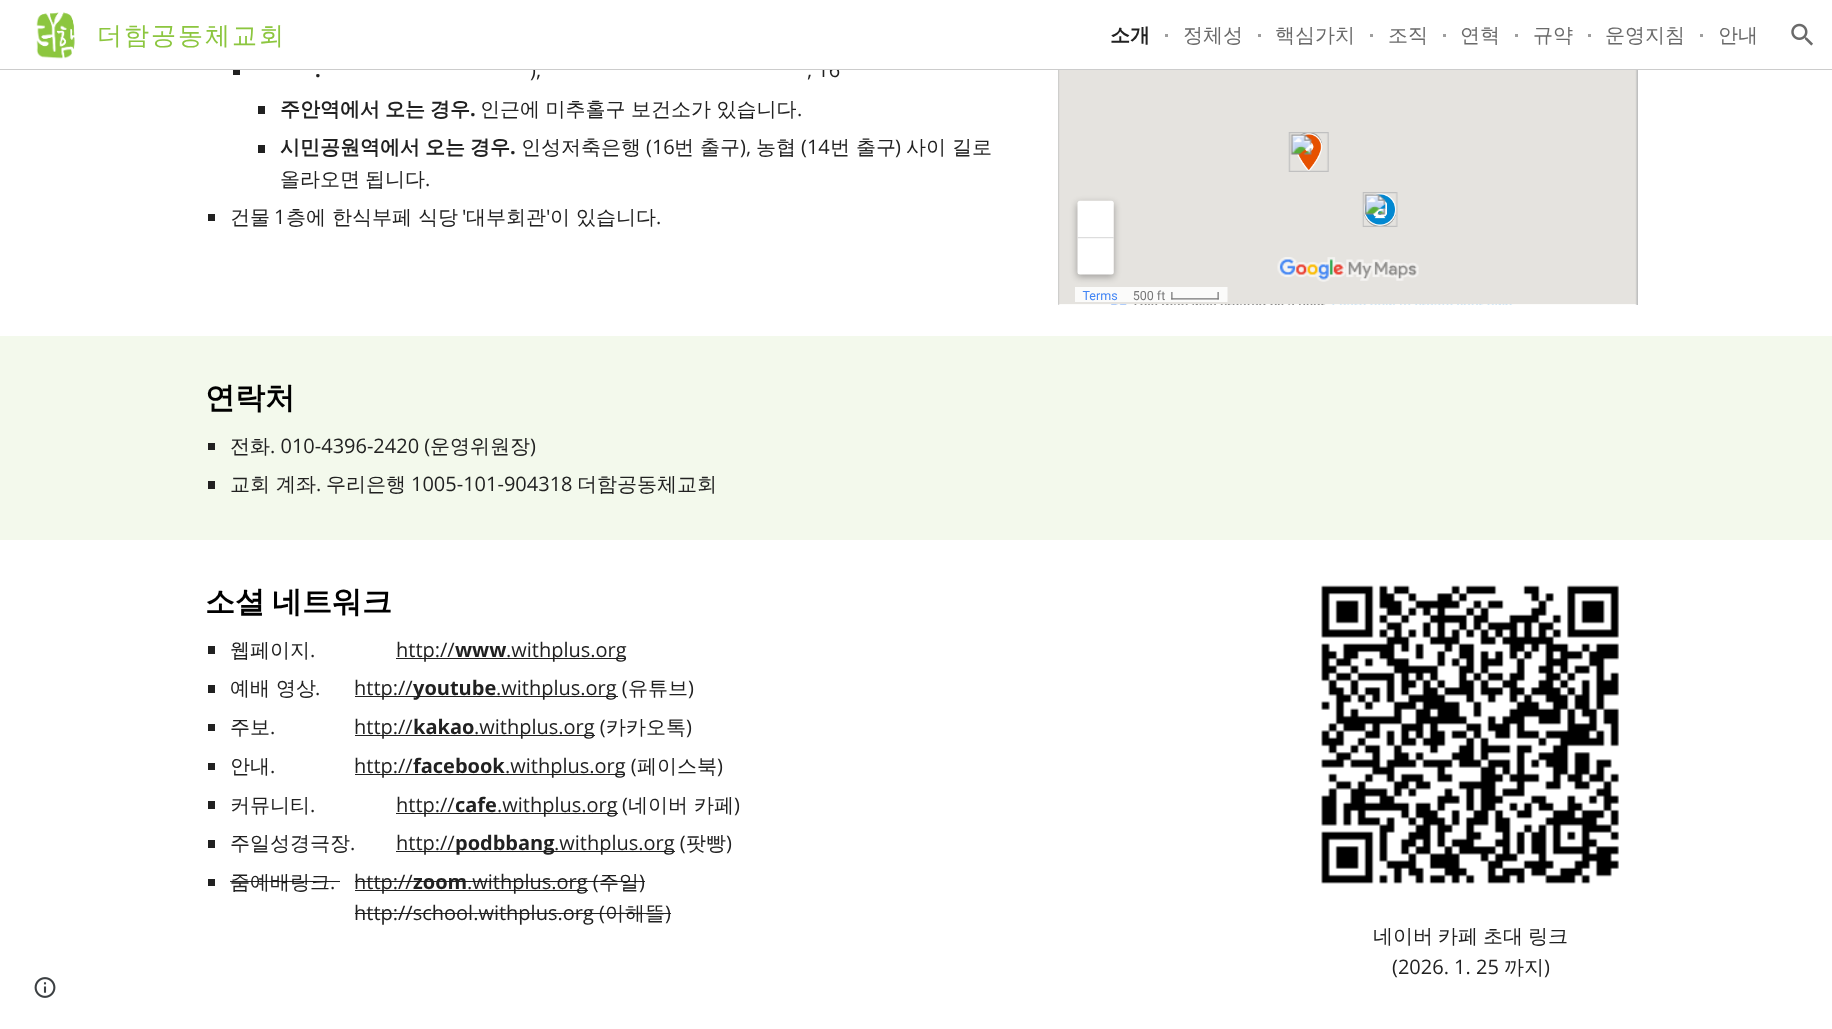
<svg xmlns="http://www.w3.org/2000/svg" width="1832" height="1029">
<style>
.a{font:500 25px WenQuanYi Zen Hei;letter-spacing:2px;fill:#8cc63f}
.b{font:bold 20px WenQuanYi Zen Hei;fill:#212121}
.c{font:500 20px WenQuanYi Zen Hei;fill:#6a6a6a}
.d{font:bold 20px Open Sans;fill:#212121}
.e{font:20px Open Sans;fill:#212121}
.f{font:500 20px WenQuanYi Zen Hei;fill:#212121}
.g{font:bold 30px WenQuanYi Zen Hei;fill:#000}
</style>
<rect width="100%" height="100%" fill="#fff"/>
<image href="1.png" x="36" y="12" width="39" height="47"/>
<path fill="#9e9e9e" d="M1165 34h3v3H1165z"/>
<path fill="#9e9e9e" d="M1258 34h3v3H1258z"/>
<path fill="#9e9e9e" d="M1370 34h3v3H1370z"/>
<path fill="#9e9e9e" d="M1443 34h3v3H1443z"/>
<path fill="#9e9e9e" d="M1515 34h3v3H1515z"/>
<path fill="#9e9e9e" d="M1588 34h3v3H1588z"/>
<path fill="#9e9e9e" d="M1700 34h3v3H1700z"/>
<image href="2.png" x="1791" y="23" width="22" height="23"/>
<path fill="#212121" d="M233 70h7v5H233z"/>
<path fill="#212121" d="M258 106h7v8H258z"/>
<path fill="#212121" d="M258 145h7v8H258z"/>
<path fill="#212121" d="M208 214h7v7H208z"/>
<image href="3.png" x="1058" y="70" width="580" height="235"/>
<path fill="#f3f9ec" d="M0 336h1832v204H0z"/>
<path fill="#212121" d="M208 443h7v7H208z"/>
<path fill="#212121" d="M208 481h7v8H208z"/>
<path fill="#212121" d="M208 646h7v8H208z"/>
<path fill="#212121" d="M396 658h230v1H396z"/>
<path fill="#212121" d="M208 685h7v8H208z"/>
<path fill="#212121" d="M355 696h263v1H355z"/>
<path fill="#212121" d="M208 724h7v7H208z"/>
<path fill="#212121" d="M355 735h240v1H355z"/>
<path fill="#212121" d="M208 763h7v7H208z"/>
<path fill="#212121" d="M355 774h270v1H355z"/>
<path fill="#212121" d="M208 801h7v8H208z"/>
<path fill="#212121" d="M396 813h222v1H396z"/>
<path fill="#212121" d="M208 840h7v8H208z"/>
<path fill="#212121" d="M396 851h279v1H396z"/>
<path fill="#212121" d="M208 879h7v7H208z"/>
<path fill="#212121" d="M230 881h110v1H230z"/>
<path fill="#212121" d="M355 890h233v1H355z"/>
<path fill="#212121" d="M355 881h59v1H355z"/>
<path fill="#212121" d="M414 881h54v1H414z"/>
<path fill="#212121" d="M468 881h120v1H468z"/>
<path fill="#212121" d="M588 881h57v1H588z"/>
<path fill="#212121" d="M355 913h316v1H355z"/>
<image href="4.png" x="1321" y="585" width="298" height="299"/>
<image href="5.png" x="34" y="977" width="22" height="21"/>
<text class="a" x="97" y="44">더함공동체교회</text>
<text class="b" x="1110" y="42">소개</text>
<text class="c" x="1183" y="42">정체성</text>
<text class="c" x="1275" y="42">핵심가치</text>
<text class="c" x="1388" y="42">조직</text>
<text class="c" x="1460" y="42">연혁</text>
<text class="c" x="1533" y="42">규약</text>
<text class="c" x="1605" y="42">운영지침</text>
<text class="c" x="1718" y="42">안내</text>
<text class="d" x="315" y="77">.</text>
<text class="e" x="530" y="77">),</text>
<text class="e" x="807" y="77">, 16</text>
<path fill="#ccc" d="M0 69h1832v1H0z"/>
<path fill="#fff" d="M530 62h309v7H530z"/>
<text class="b" x="280" y="116" word-spacing="-1">주안역에서 오는 경우</text>
<text class="d" x="470" y="116">.</text>
<text class="f" x="480" y="116" word-spacing="-0.5">인근에 미추홀구 보건소가 있습니다</text>
<text class="e" x="797" y="116">.</text>
<text class="b" x="280" y="154" word-spacing="-1">시민공원역에서 오는 경우</text>
<text class="d" x="510" y="154">.</text>
<text class="f" x="521" y="154">인성저축은행</text>
<text class="e" x="646" y="154">(16</text>
<text class="f" x="674" y="154">번 출구</text>
<text class="e" x="740" y="154">),</text>
<text class="f" x="756" y="154">농협</text>
<text class="e" x="801" y="154">(14</text>
<text class="f" x="830" y="154">번 출구</text>
<text class="e" x="895" y="154">)</text>
<text class="f" x="906" y="154">사이 길로</text>
<text class="f" x="280" y="186" word-spacing="-1">올라오면 됩니다</text>
<text class="e" x="425" y="186">.</text>
<text class="f" x="230" y="224">건물</text>
<text class="e" x="274" y="224">1</text>
<text class="f" x="286" y="224">층에 한식부페 식당</text>
<text class="e" x="462" y="224">'</text>
<text class="f" x="466" y="224">대부회관</text>
<text class="e" x="546" y="224">'</text>
<text class="f" x="550" y="224">이 있습니다</text>
<text class="e" x="656" y="224">.</text>
<text class="g" x="205" y="408">연락처</text>
<text class="f" x="230" y="453">전화</text>
<text class="e" x="270" y="453">. 010-4396-2420 (</text>
<text class="f" x="430" y="453">운영위원장</text>
<text class="e" x="530" y="453">)</text>
<text class="f" x="230" y="491">교회 계좌</text>
<text class="e" x="316" y="491">.</text>
<text class="f" x="326" y="491">우리은행</text>
<text class="e" x="411" y="491">1005-101-904318</text>
<text class="f" x="577" y="491">더함공동체교회</text>
<text class="g" x="205" y="612" word-spacing="-2">소셜 네트워크</text>
<text class="f" x="230" y="657">웹페이지</text>
<text class="e" x="310" y="657">.</text>
<text class="e" x="396" y="657">http://</text>
<text class="d" x="455" y="657">www</text>
<text class="e" x="506" y="657">.withplus.org</text>
<text class="f" x="230" y="695">예배 영상</text>
<text class="e" x="315" y="695">.</text>
<text class="e" x="354" y="695">http://</text>
<text class="d" x="413" y="695">youtube</text>
<text class="e" x="496" y="695">.withplus.org (</text>
<text class="f" x="628" y="695">유튜브</text>
<text class="e" x="688" y="695">)</text>
<text class="f" x="230" y="734">주보</text>
<text class="e" x="270" y="734">.</text>
<text class="e" x="354" y="734">http://</text>
<text class="d" x="413" y="734">kakao</text>
<text class="e" x="474" y="734">.withplus.org (</text>
<text class="f" x="606" y="734">카카오톡</text>
<text class="e" x="686" y="734">)</text>
<text class="f" x="230" y="773">안내</text>
<text class="e" x="270" y="773">.</text>
<text class="e" x="354" y="773">http://</text>
<text class="d" x="413" y="773">facebook</text>
<text class="e" x="505" y="773">.withplus.org (</text>
<text class="f" x="637" y="773">페이스북</text>
<text class="e" x="717" y="773">)</text>
<text class="f" x="230" y="812">커뮤니티</text>
<text class="e" x="310" y="812">.</text>
<text class="e" x="396" y="812">http://</text>
<text class="d" x="455" y="812">cafe</text>
<text class="e" x="497" y="812">.withplus.org</text>
<text class="e" x="622" y="812">(</text>
<text class="f" x="628" y="812">네이버 카페</text>
<text class="e" x="734" y="812">)</text>
<text class="f" x="230" y="850">주일성경극장</text>
<text class="e" x="350" y="850">.</text>
<text class="e" x="396" y="850">http://</text>
<text class="d" x="455" y="850">podbbang</text>
<text class="e" x="554" y="850">.withplus.org (</text>
<text class="f" x="686" y="850">팟빵</text>
<text class="e" x="726" y="850">)</text>
<text class="f" x="230" y="889">줌예배링크</text>
<text class="e" x="330" y="889">.</text>
<text class="e" x="354" y="889">http://</text>
<text class="d" x="413" y="889">zoom</text>
<text class="e" x="467" y="889">.withplus.org (</text>
<text class="f" x="599" y="889">주일</text>
<text class="e" x="639" y="889">)</text>
<text class="e" x="354" y="920">http://school.withplus.org (</text>
<text class="f" x="605" y="920">아해뜰</text>
<text class="e" x="665" y="920">)</text>
<text class="f" x="1373" y="943" word-spacing="-1">네이버 카페 초대 링크</text>
<text class="e" x="1392" y="974">(2026. 1. 25</text>
<text class="f" x="1504" y="974">까지</text>
<text class="e" x="1544" y="974">)</text>
</svg>
